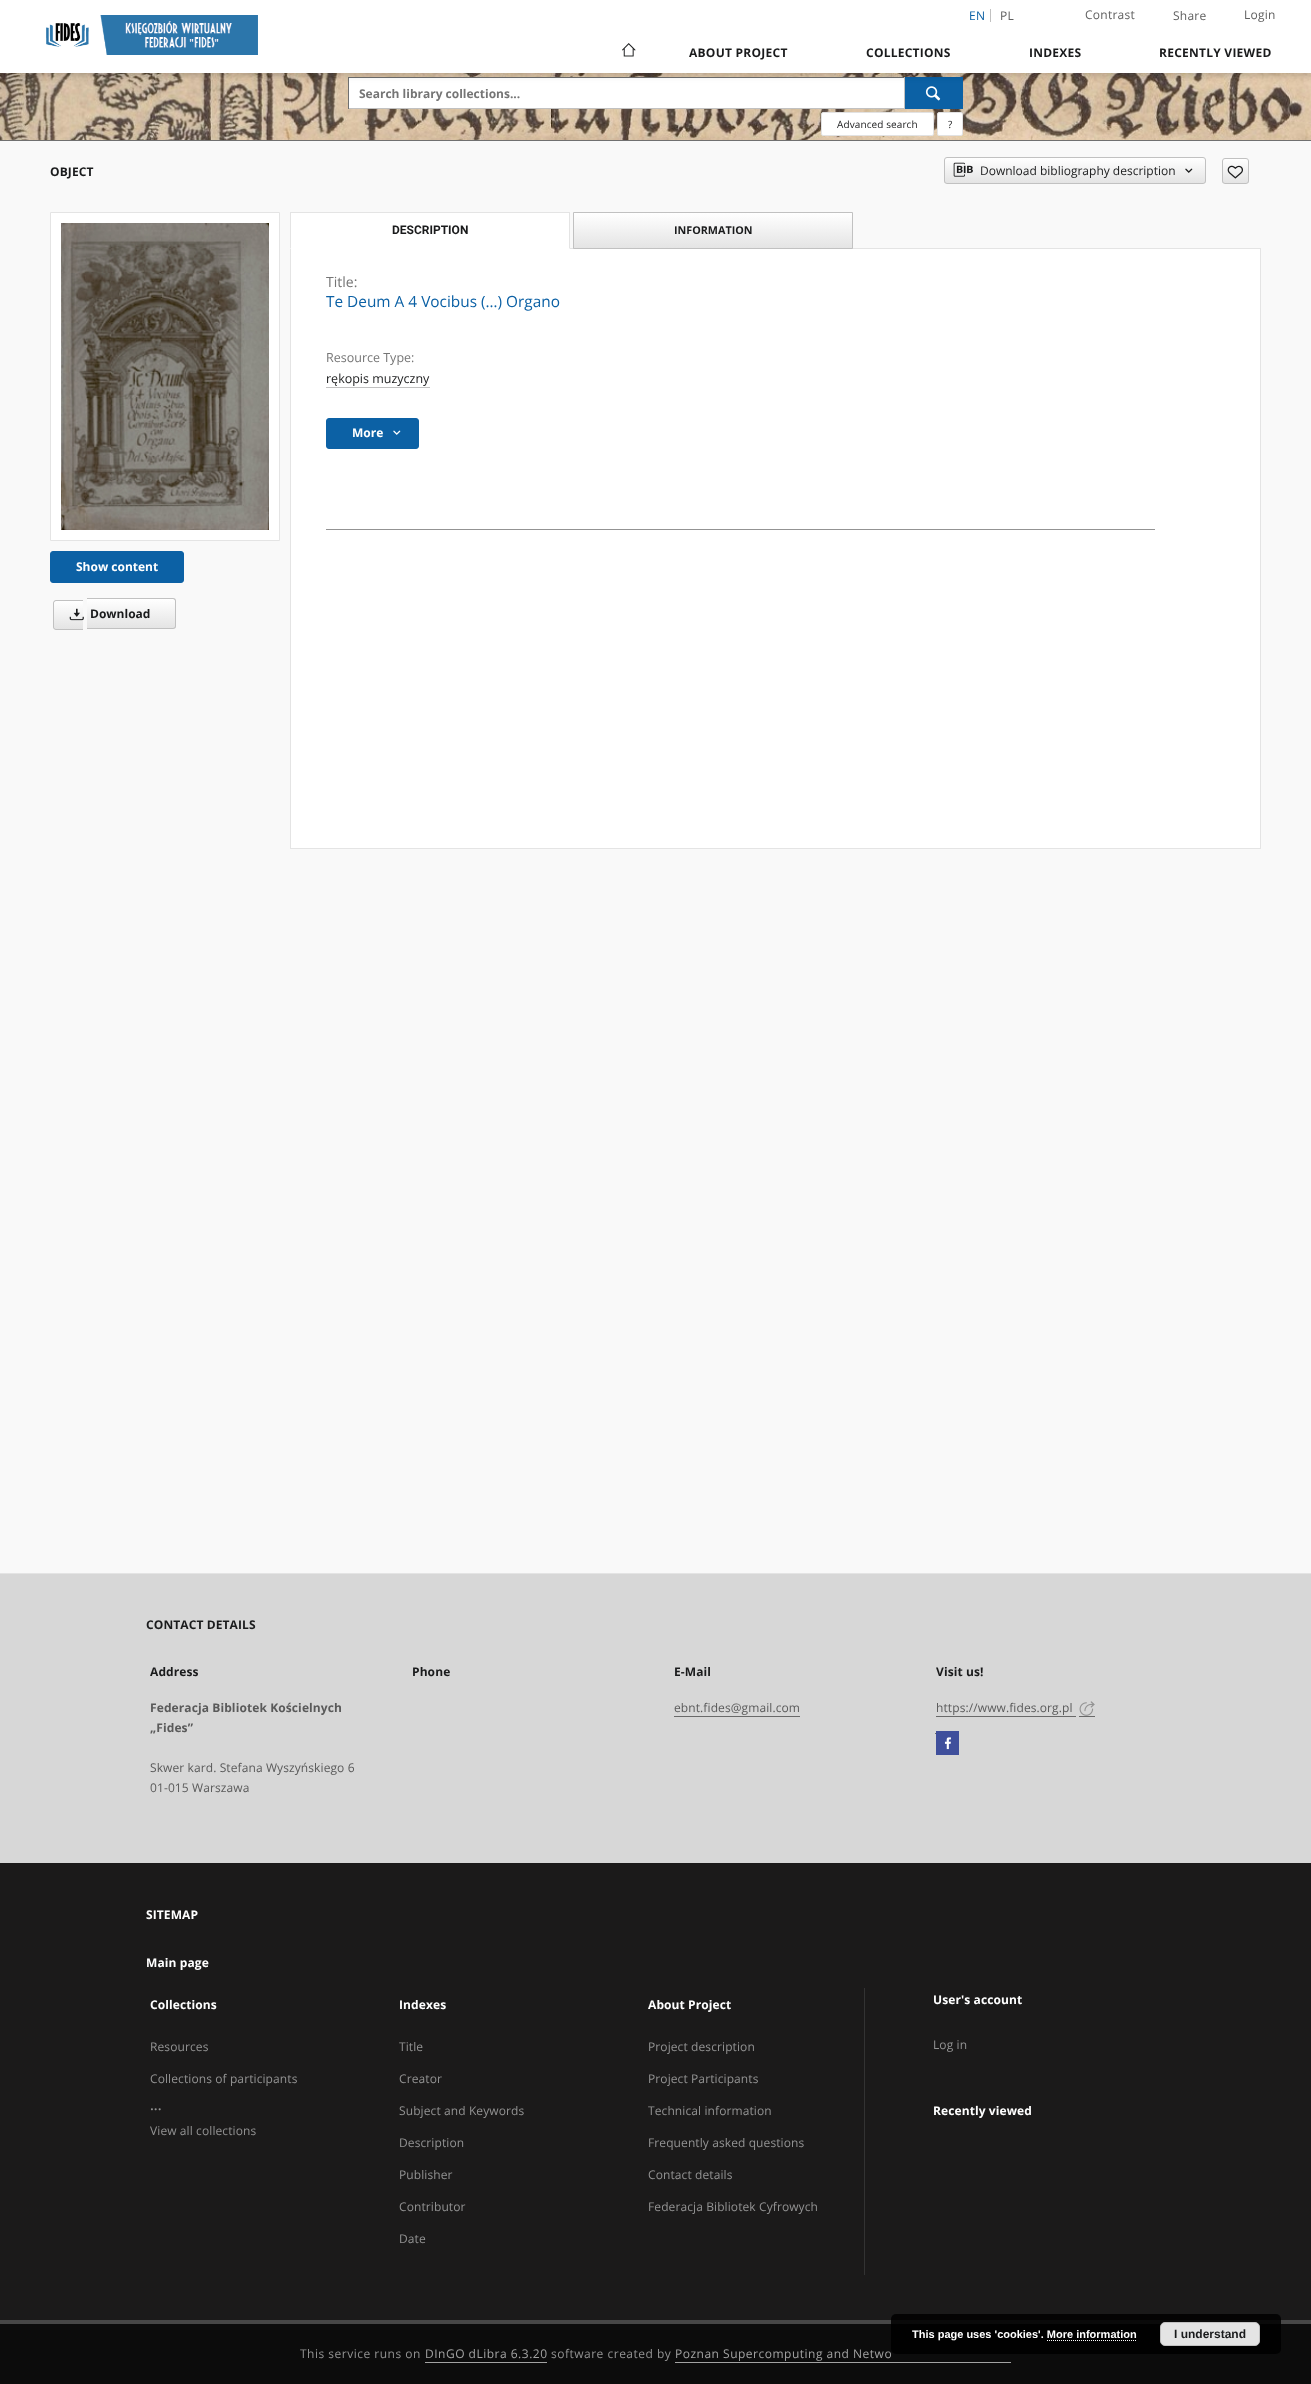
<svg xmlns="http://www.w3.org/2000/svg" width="1311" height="2384">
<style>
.a{font:12px Open Sans;letter-spacing:0.25px;fill:#0c61a5}
.b{font:12px Open Sans;letter-spacing:0.25px;fill:#606060}
.c{font:bold 12px Open Sans;letter-spacing:0.25px;fill:#1a1b1c}
.d{font:bold 12px Open Sans;fill:#757575}
.e{font:10px Open Sans;letter-spacing:0.1px;fill:#1a1b1c}
.f{font:10px Open Sans;fill:#1a1b1c}
.g{font:bold 12px Open Sans;letter-spacing:0.1px;fill:#1a1b1c}
.h{font:12px Open Sans;fill:#1a1b1c}
.i{font:bold 12px Roboto;fill:#1a1b1c}
.j{font:bold 10.75px Open Sans;fill:#1a1b1c}
.k{font:14px Open Sans;fill:#757575}
.l{font:15.4px Open Sans;fill:#0c61a5}
.m{font:12.5px Open Sans;fill:#757575}
.n{font:12.5px Open Sans;fill:#1a1b1c}
.o{font:bold 12px Open Sans;fill:#fff}
.p{font:bold 12px Open Sans;fill:#1a1b1c}
.q{font:bold 12px Open Sans;letter-spacing:0.1px;fill:#5a5a5a}
.r{font:12px Open Sans;letter-spacing:0.1px;fill:#5a5a5a}
.s{font:bold 12px Open Sans;letter-spacing:0.1px;fill:#fff}
.t{font:12px Open Sans;letter-spacing:0.1px;fill:#939393}
.u{font:600 14px Open Sans;fill:#939393}
.v{font:bold 11px Liberation Sans;fill:#fff}
.w{font:bold 12px Liberation Sans;fill:#1a1b1c}
.x{font:12px Open Sans;letter-spacing:0.5px;fill:#939393}
.y{font:12px Open Sans;letter-spacing:0.5px;fill:#a3a3a3}
</style>
<defs>
<clipPath id="clip1"><rect x="944" y="157" width="262" height="27" rx="3"/></clipPath>
<linearGradient id="g1" gradientUnits="userSpaceOnUse" x1="1075" y1="158" x2="1075" y2="183"><stop offset="0" stop-color="#fff"/><stop offset="1" stop-color="#e4e4e4"/></linearGradient>
<clipPath id="clip2"><rect x="1222" y="158" width="27" height="26" rx="3"/></clipPath>
<linearGradient id="g2" gradientUnits="userSpaceOnUse" x1="1236" y1="159" x2="1236" y2="183"><stop offset="0" stop-color="#fff"/><stop offset="1" stop-color="#e4e4e4"/></linearGradient>
<linearGradient id="g3" gradientUnits="userSpaceOnUse" x1="713" y1="213" x2="713" y2="248"><stop offset="0" stop-color="#fff"/><stop offset="1" stop-color="#e4e4e4"/></linearGradient>
<clipPath id="clip3"><path d="M56 600h27v30h-27c-1.5 0-3-1.5-3-3v-24c0-1.5 1.5-3 3-3z"/></clipPath>
<linearGradient id="g4" gradientUnits="userSpaceOnUse" x1="69" y1="601" x2="69" y2="629"><stop offset="0" stop-color="#fff"/><stop offset="1" stop-color="#e4e4e4"/></linearGradient>
<clipPath id="clip4"><path d="M87 598h86c1.5 0 3 1.5 3 3v25c0 1.5-1.5 3-3 3h-86z"/></clipPath>
<linearGradient id="g5" gradientUnits="userSpaceOnUse" x1="131" y1="599" x2="131" y2="628"><stop offset="0" stop-color="#fff"/><stop offset="1" stop-color="#e4e4e4"/></linearGradient>
</defs>
<rect width="100%" height="100%" fill="#f9f9f9"/>
<image href="3.png" x="0" y="73" width="1311" height="67"/>
<path fill="#fff" d="M349 78h555v30H349z"/>
<path fill="#707070" d="M348 77h557v1H348z"/>
<path fill="#c1c1c1" d="M904 77h1v32H904z"/>
<path fill="#c1c1c1" d="M348 108h557v1H348z"/>
<path fill="#707070" d="M348 77h1v32H348z"/>
<path fill="#0c61a5" d="M905 77h58v32H905z"/>
<image href="4.png" x="925" y="86" width="16" height="15"/>
<path fill="#00000014" filter="blur(5px)" d="M0 1h1311v73H0z"/>
<path fill="#0000000f" filter="blur(2.5px)" d="M0 4h1311v73H0z"/>
<path fill="#0000000f" filter="blur(2px)" d="M1 3h1309v71H1z"/>
<path fill="#fff" d="M0 0h1311v73H0z"/>
<path fill="#c1c1c1" d="M990 9h1v13H990z"/>
<image href="1.png" x="46" y="15" width="212" height="40"/>
<image href="2.png" x="622" y="43" width="14" height="14"/>
<path fill="#707070" d="M0 140h1311v1H0z"/>
<rect fill="#fff" stroke="#e2e2e2" x="821.5" y="112.5" width="112" height="23" rx="1.5"/>
<rect fill="#fff" stroke="#e2e2e2" x="937.5" y="112.5" width="25" height="23" rx="1.5"/>
<g clip-path="url(#clip1)">
<path fill="url(#g1)" d="M944 158h262v25H944z"/>
</g>
<rect fill="none" stroke="#c1c1c1" x="944.5" y="157.5" width="261" height="26" rx="2.5"/>
<image href="5.png" x="953" y="162" width="20" height="15"/>
<image href="6.png" x="1185" y="168" width="8" height="5"/>
<g clip-path="url(#clip2)">
<path fill="url(#g2)" d="M1222 159h27v24H1222z"/>
</g>
<rect fill="none" stroke="#c1c1c1" x="1222.5" y="158.5" width="26" height="25" rx="2.5"/>
<image href="7.png" x="1227" y="165" width="16" height="14"/>
<path fill="#e4e4e4" d="M570 248h691v1H570z"/>
<path fill="#fff" d="M290 213h280v36H290z"/>
<path fill="#e4e4e4" d="M290 212h280v1H290z"/>
<path fill="#e4e4e4" d="M570 212v37l-1-1v-35z"/>
<path fill="#e4e4e4" d="M290 249v-37l1 1v35z"/>
<path fill="url(#g3)" d="M574 213h278v35H574z"/>
<path fill="none" stroke="#c1c1c1" d="M573.5 212.5h279v36H573.5z"/>
<path fill="#fff" d="M291 249h969v599H291z"/>
<path fill="#e4e4e4" d="M1260 249h1v600H1260z"/>
<path fill="#e4e4e4" d="M290 848h971v1H290z"/>
<path fill="#e4e4e4" d="M290 249h1v600H290z"/>
<path fill="#c1c1c1" d="M326 387h104v1H326z"/>
<rect fill="#0c61a5" stroke="#0c61a5" x="326.5" y="418.5" width="92" height="30" rx="2.5"/>
<image href="8.png" x="393" y="430" width="8" height="5"/>
<path fill="#939393" d="M326 529h829v1H326z"/>
<path fill="#fff" stroke="#e4e4e4" d="M50.5 212.5h229v328H50.5z"/>
<image href="9.png" x="61" y="223" width="208" height="307"/>
<rect fill="#0c61a5" stroke="#0c61a5" x="50.5" y="551.5" width="133" height="31" rx="2.5"/>
<g clip-path="url(#clip3)">
<path fill="url(#g4)" d="M53 601h30v28H53z"/>
</g>
<path fill="#c1c1c1" fill-rule="evenodd" d="M56 600h27v30h-27c-1.5 0-3-1.5-3-3v-24c0-1.5 1.5-3 3-3zm0 1h27v28h-27c-1 0-2-1-2-2v-24c0-1 1-2 2-2z"/>
<g clip-path="url(#clip4)">
<path fill="url(#g5)" d="M87 599h89v29H87z"/>
</g>
<path fill="#c1c1c1" fill-rule="evenodd" d="M87 598h86c2 0 3 1 3 3v25c0 2-1 3-3 3h-86zm0 1h86c1 0 2 1 2 2v25c0 1-1 2-2 2h-86z"/>
<image href="10.png" x="69" y="608" width="15" height="13"/>
<path fill="#d7d7d7" d="M0 1574h1311v289H0z"/>
<path fill="#e4e4e4" d="M0 1573h1311v1H0z"/>
<path fill="#696969" d="M674 1716h126v1H674z"/>
<path fill="#696969" d="M936 1716h140v1H936z"/>
<path fill="#696969" d="M1079 1716h16v1H1079z"/>
<image href="11.png" x="1079" y="1701" width="16" height="15"/>
<path fill="#696969" d="M935 1733h1v1H935z"/>
<path fill="#3f4f9c" d="M936 1731h23v24H936z"/>
<image href="12.png" x="944" y="1737" width="7" height="13"/>
<path fill="#1b1a1a" d="M0 1863h1311v457H0z"/>
<path fill="#333" d="M864 1988h1v287H864z"/>
<path fill="#0c0c0c" d="M0 2324h1311v60H0z"/>
<path fill="#474747" d="M0 2320h1311v4H0z"/>
<rect fill="#000000d9" x="891" y="2314" width="390" height="40" rx="5"/>
<rect fill="#e4e4e4" stroke="#c1c1c1" x="1160.5" y="2322.5" width="99" height="23" rx="4.5"/>
<path fill="none" stroke="#fff" stroke-dasharray="1 1" d="M1047 2340.5h90"/>
<path fill="#a3a3a3" d="M425 2362h122v1H425z"/>
<path fill="#a3a3a3" d="M675 2362h336v1H675z"/>
<text class="a" x="969" y="20">EN</text>
<text class="b" x="1000" y="20">PL</text>
<text class="b" x="1085" y="19">Contrast</text>
<text class="b" x="1173" y="20">Share</text>
<text class="b" x="1244" y="19">Login</text>
<text class="c" x="689" y="57">ABOUT PROJECT</text>
<text class="c" x="866" y="57">COLLECTIONS</text>
<text class="c" x="1029" y="57">INDEXES</text>
<text class="c" x="1159" y="57">RECENTLY VIEWED</text>
<text class="d" x="359" y="98">Search library collections...</text>
<text class="e" x="837" y="128">Advanced search</text>
<text class="f" x="948" y="128">?</text>
<text class="g" x="50" y="176">OBJECT</text>
<text class="h" x="980" y="175">Download bibliography description</text>
<text class="i" x="392" y="234">DESCRIPTION</text>
<text class="j" x="674" y="234">INFORMATION</text>
<text class="k" x="326" y="287">Title:</text>
<text class="l" x="326" y="307">Te Deum A 4 Vocibus (…) Organo</text>
<text class="m" x="326" y="362">Resource Type:</text>
<text class="n" x="326" y="383">rękopis muzyczny</text>
<text class="o" x="352" y="437">More</text>
<text class="o" x="76" y="571">Show content</text>
<text class="p" x="90" y="618">Download</text>
<text class="g" x="146" y="1629">CONTACT DETAILS</text>
<text class="g" x="150" y="1676">Address</text>
<text class="q" x="150" y="1712">Federacja Bibliotek Kościelnych</text>
<text class="q" x="150" y="1732">„Fides”</text>
<text class="r" x="150" y="1772">Skwer kard. Stefana Wyszyńskiego 6</text>
<text class="r" x="150" y="1792">01-015 Warszawa</text>
<text class="g" x="412" y="1676">Phone</text>
<text class="g" x="674" y="1676">E-Mail</text>
<text class="r" x="674" y="1712">ebnt.fides@gmail.com</text>
<text class="g" x="936" y="1676">Visit us!</text>
<text class="r" x="936" y="1712">https://www.fides.org.pl</text>
<text class="s" x="146" y="1919">SITEMAP</text>
<text class="s" x="146" y="1967">Main page</text>
<text class="s" x="150" y="2009">Collections</text>
<text class="t" x="150" y="2051">Resources</text>
<text class="t" x="150" y="2083">Collections of participants</text>
<text class="u" x="150" y="2110">...</text>
<text class="t" x="150" y="2135">View all collections</text>
<text class="s" x="399" y="2009">Indexes</text>
<text class="t" x="399" y="2051">Title</text>
<text class="t" x="399" y="2083">Creator</text>
<text class="t" x="399" y="2115">Subject and Keywords</text>
<text class="t" x="399" y="2147">Description</text>
<text class="t" x="399" y="2179">Publisher</text>
<text class="t" x="399" y="2211">Contributor</text>
<text class="t" x="399" y="2243">Date</text>
<text class="s" x="648" y="2009">About Project</text>
<text class="t" x="648" y="2051">Project description</text>
<text class="t" x="648" y="2083">Project Participants</text>
<text class="t" x="648" y="2115">Technical information</text>
<text class="t" x="648" y="2147">Frequently asked questions</text>
<text class="t" x="648" y="2179">Contact details</text>
<text class="t" x="648" y="2211">Federacja Bibliotek Cyfrowych</text>
<text class="s" x="933" y="2004">User's account</text>
<text class="t" x="933" y="2049">Log in</text>
<text class="s" x="933" y="2115">Recently viewed</text>
<text class="v" x="912" y="2338">This page uses 'cookies'. More information</text>
<text class="w" x="1174" y="2338">I understand</text>
<text class="x" x="300" y="2358">This service runs on</text>
<text class="y" x="425" y="2358">DInGO dLibra 6.3.20</text>
<text class="x" x="551" y="2358">software created by</text>
<text class="y" x="675" y="2358">Poznan Supercomputing and Netwo</text>
</svg>
